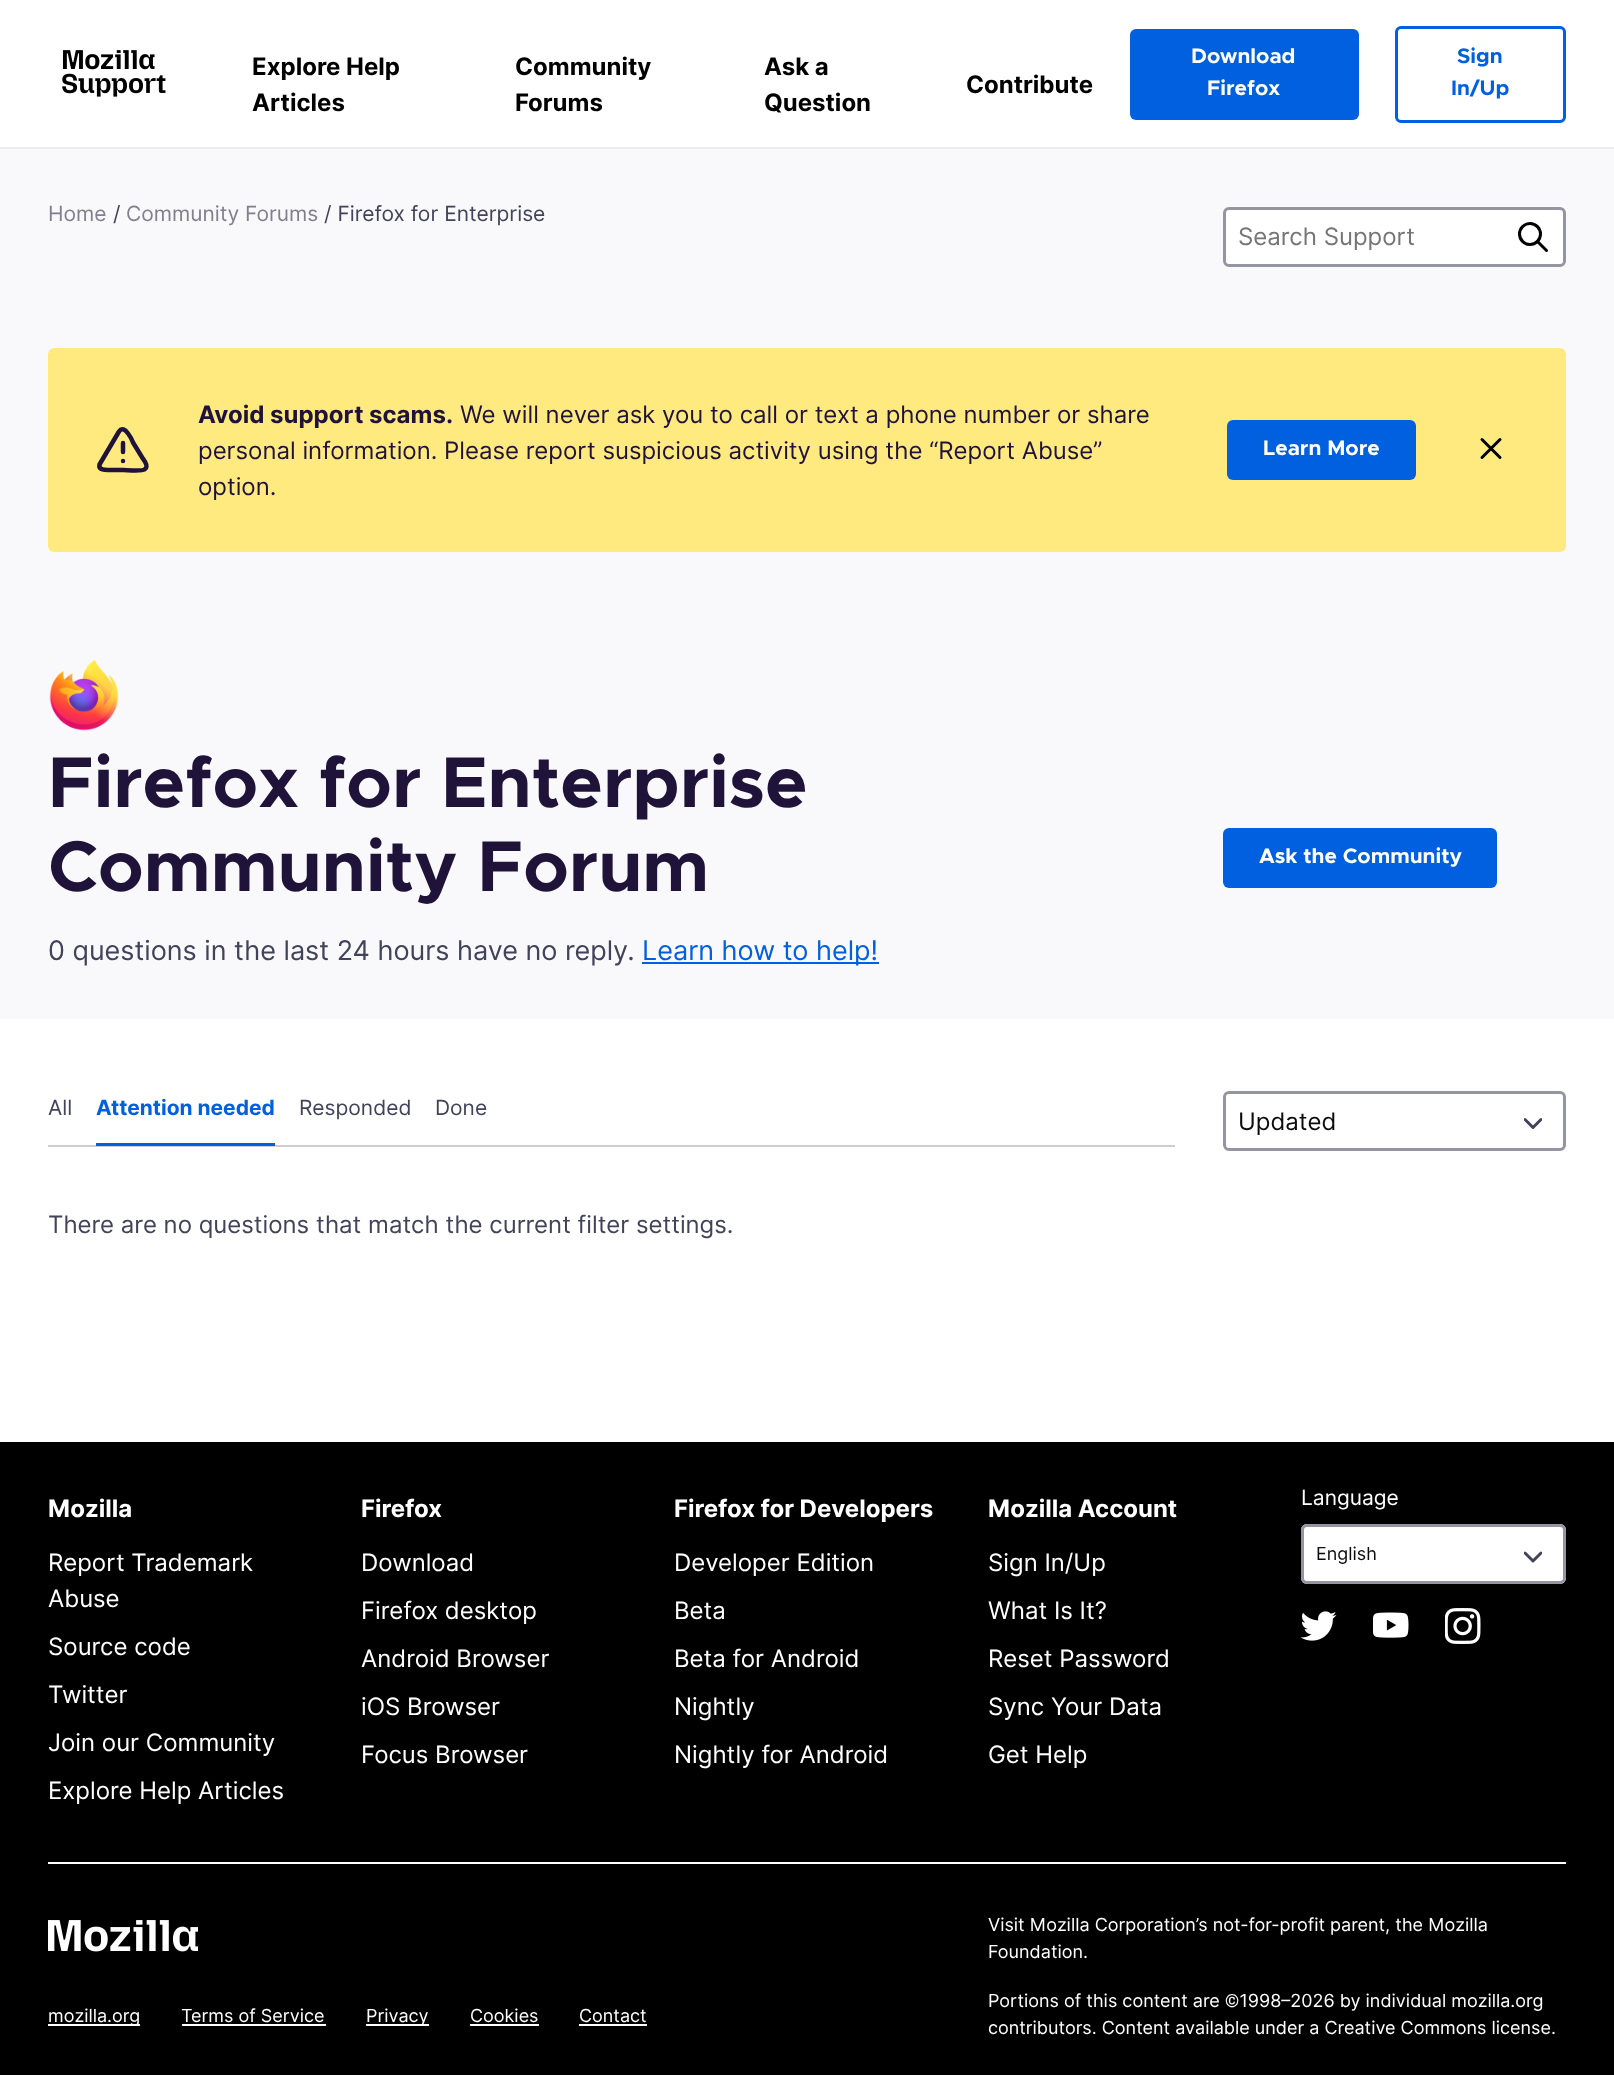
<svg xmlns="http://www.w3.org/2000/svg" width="1614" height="2075">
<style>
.a{font:bold 24px Inter;fill:#000}
.b{font:bold 21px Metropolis;fill:#fff}
.c{font:bold 21px Metropolis;fill:#0060df}
.d{font:21px Inter;fill:#80808f}
.e{font:21px Inter;fill:#42435a}
.f{font:24px Inter;fill:#757575}
.g{font:bold 24px Inter;fill:#20133a}
.h{font:24px Inter;fill:#20133a}
.i{font:bold 72px Metropolis;fill:#20133a}
.j{font:27px Inter;fill:#42435a}
.k{font:27px Inter;fill:#0060df}
.l{font:bold 21px Inter;fill:#0060df}
.m{font:24px Inter;fill:#42435a}
.n{font:24px Inter;fill:#0c0c0d}
.o{font:bold 24px Inter;fill:#fff}
.p{font:24px Inter;fill:#fff}
.q{font:21px Inter;fill:#fff}
.r{font:18px Inter;fill:#0c0c0d}
.s{font:18px Inter;fill:#fff}
</style>
<defs>
<clipPath id="clip1"><path d="M1524 1115h18v18H1524z"/></clipPath>
<clipPath id="clip2"><path d="M1524 1548h18v18H1524z"/></clipPath>
</defs>
<rect width="100%" height="100%" fill="#fff"/>
<path fill="#ededf0" d="M0 147h1614v2H0z"/>
<image href="1.png" x="62" y="50" width="104" height="47"/>
<rect fill="#0060df" x="1130" y="29" width="229" height="91" rx="6"/>
<rect fill="none" stroke="#0060df" stroke-width="3" x="1396.5" y="27.5" width="168" height="94" rx="4.5"/>
<path fill="#f9f9fb" d="M0 149h1614v870H0z"/>
<rect fill="#fff" stroke="#9595a2" stroke-width="3" x="1224.5" y="208.5" width="340" height="57" rx="4.5"/>
<circle fill="none" stroke="#000" stroke-width="3" cx="1530" cy="234" r="10.5"/>
<path fill="none" stroke="#000" stroke-width="3" stroke-linecap="round" d="M1537.5 241.5l9 9"/>
<rect fill="#ffea80" x="48" y="348" width="1518" height="204" rx="6"/>
<path fill="none" stroke="#20133a" stroke-width="4.5" stroke-linecap="round" stroke-linejoin="round" d="M119 431.5l-19.5 33c-1.5 6.5 7.5 5.5 11 5.5h12.5c4 0 18.5 1.5 21.5-.5l1.5-1.5c2-3.5-1.5-7-3.5-10l-9.5-15.5c-.5-1.5-8.5-19.5-14-11zm4 11.5v9m0 9h0"/>
<rect fill="#0060df" x="1227" y="420" width="189" height="60" rx="6"/>
<path fill="none" stroke="#000" stroke-width="3" stroke-linecap="round" d="M1482 439.5l18 18m-18 0l18-18"/>
<image href="2.png" x="49" y="660" width="70" height="71"/>
<path fill="#0060df" d="M642 962h237v2H642z"/>
<rect fill="#0060df" x="1223" y="828" width="274" height="60" rx="6"/>
<path fill="#cdcdd4" d="M48 1145h1127v2H48z"/>
<path fill="#0060df" d="M96 1143h179v3H96z"/>
<g clip-path="url(#clip1)">
<path fill="none" stroke="#42435a" stroke-width="3" stroke-linecap="round" stroke-linejoin="round" d="M1525 1119.5l8 8l8-8"/>
</g>
<rect fill="none" stroke="#9595a2" stroke-width="3" x="1224.5" y="1092.5" width="340" height="57" rx="4.5"/>
<path fill="#000" d="M0 1442h1614v633H0z"/>
<path fill="#fff" d="M48 1862h1518v2H48z"/>
<rect fill="#fff" x="1301" y="1524" width="265" height="60" rx="6"/>
<g clip-path="url(#clip2)">
<path fill="none" stroke="#42435a" stroke-width="3" stroke-linecap="round" stroke-linejoin="round" d="M1525 1553l8 8l8-8"/>
</g>
<rect fill="none" stroke="#9595a2" stroke-width="3" x="1302.5" y="1525.5" width="262" height="57" rx="4.5"/>
<image href="3.png" x="1301" y="1611" width="36" height="30"/>
<image href="4.png" x="1373" y="1612" width="36" height="26"/>
<image href="5.png" x="1445" y="1608" width="36" height="36"/>
<image href="6.png" x="48" y="1920" width="150" height="32"/>
<path fill="#fff" d="M48 2024h92v2H48z"/>
<path fill="#fff" d="M182 2024h144v2H182z"/>
<path fill="#fff" d="M366 2024h63v2H366z"/>
<path fill="#fff" d="M470 2024h69v2H470z"/>
<path fill="#fff" d="M579 2024h68v2H579z"/>
<text class="a" x="252" y="75">Explore Help</text>
<text class="a" x="252" y="111">Articles</text>
<text class="a" x="515" y="75">Community</text>
<text class="a" x="515" y="111">Forums</text>
<text class="a" x="764" y="75">Ask a</text>
<text class="a" x="764" y="111">Question</text>
<text class="a" x="966" y="93">Contribute</text>
<text class="b" x="1191" y="63">Download</text>
<text class="b" x="1207" y="95">Firefox</text>
<text class="c" x="1457" y="63">Sign</text>
<text class="c" x="1451" y="95">In/Up</text>
<text class="d" x="48" y="221">Home</text>
<text class="e" x="113" y="221">/</text>
<text class="d" x="126" y="221">Community Forums</text>
<text class="e" x="324" y="221">/ Firefox for Enterprise</text>
<text class="f" x="1238" y="245">Search Support</text>
<text class="g" x="198" y="423">Avoid support scams.</text>
<text class="h" x="460" y="423">We will never ask you to call or text a phone number or share</text>
<text class="h" x="198" y="459">personal information. Please report suspicious activity using the “Report Abuse”</text>
<text class="h" x="198" y="495">option.</text>
<text class="b" x="1263" y="455">Learn More</text>
<text class="i" x="48" y="807">Firefox for Enterprise</text>
<text class="i" x="48" y="891">Community Forum</text>
<text class="j" x="48" y="960">0 questions in the last 24 hours have no reply.</text>
<text class="k" x="642" y="960">Learn how to help!</text>
<text class="b" x="1259" y="863">Ask the Community</text>
<text class="e" x="48" y="1115">All</text>
<text class="l" x="96" y="1115">Attention needed</text>
<text class="e" x="299" y="1115">Responded</text>
<text class="e" x="435" y="1115">Done</text>
<text class="m" x="48" y="1233">There are no questions that match the current filter settings.</text>
<text class="n" x="1238" y="1130">Updated</text>
<text class="o" x="48" y="1517">Mozilla</text>
<text class="p" x="48" y="1571">Report Trademark</text>
<text class="p" x="48" y="1607">Abuse</text>
<text class="p" x="48" y="1655">Source code</text>
<text class="p" x="48" y="1703">Twitter</text>
<text class="p" x="48" y="1751">Join our Community</text>
<text class="p" x="48" y="1799">Explore Help Articles</text>
<text class="o" x="361" y="1517">Firefox</text>
<text class="p" x="361" y="1571">Download</text>
<text class="p" x="361" y="1619">Firefox desktop</text>
<text class="p" x="361" y="1667">Android Browser</text>
<text class="p" x="361" y="1715">iOS Browser</text>
<text class="p" x="361" y="1763">Focus Browser</text>
<text class="o" x="674" y="1517">Firefox for Developers</text>
<text class="p" x="674" y="1571">Developer Edition</text>
<text class="p" x="674" y="1619">Beta</text>
<text class="p" x="674" y="1667">Beta for Android</text>
<text class="p" x="674" y="1715">Nightly</text>
<text class="p" x="674" y="1763">Nightly for Android</text>
<text class="o" x="988" y="1517">Mozilla Account</text>
<text class="p" x="988" y="1571">Sign In/Up</text>
<text class="p" x="988" y="1619">What Is It?</text>
<text class="p" x="988" y="1667">Reset Password</text>
<text class="p" x="988" y="1715">Sync Your Data</text>
<text class="p" x="988" y="1763">Get Help</text>
<text class="q" x="1301" y="1505">Language</text>
<text class="r" x="1316" y="1560">English</text>
<text class="s" x="48" y="2022">mozilla.org</text>
<text class="s" x="181" y="2022">Terms of Service</text>
<text class="s" x="366" y="2022">Privacy</text>
<text class="s" x="470" y="2022">Cookies</text>
<text class="s" x="579" y="2022">Contact</text>
<text class="s" x="988" y="1931">Visit Mozilla Corporation’s not-for-profit parent, the Mozilla</text>
<text class="s" x="988" y="1958">Foundation.</text>
<text class="s" x="988" y="2007">Portions of this content are ©1998–2026 by individual mozilla.org</text>
<text class="s" x="988" y="2034">contributors. Content available under a Creative Commons license.</text>
</svg>
